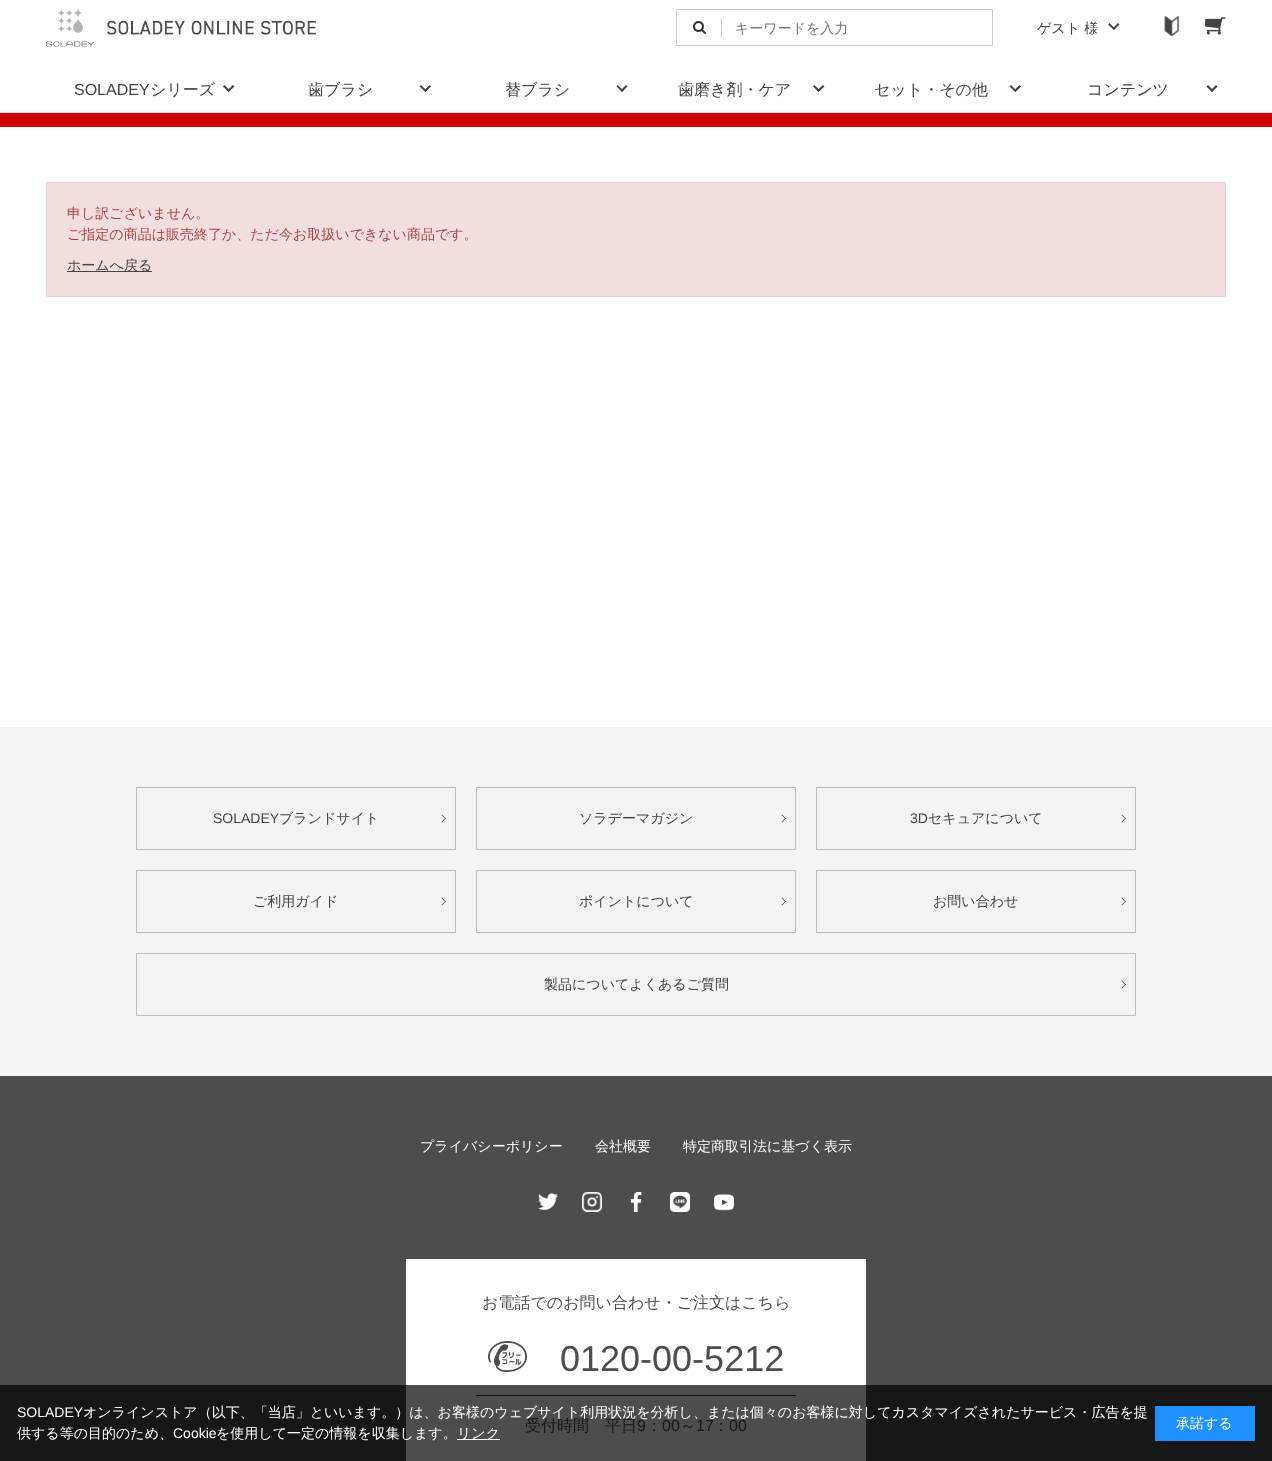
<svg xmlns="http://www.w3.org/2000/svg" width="1272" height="1461">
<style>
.a{font:500 14px WenQuanYi Zen Hei;fill:#757575}
.b{font:500 14px WenQuanYi Zen Hei;fill:#444}
.c{font:16px Liberation Sans;fill:#444}
.d{font:500 16px WenQuanYi Zen Hei;fill:#444}
.e{font:500 14px WenQuanYi Zen Hei;fill:#a94442}
.f{font:14px Liberation Sans;fill:#444}
.g{font:500 14px WenQuanYi Zen Hei;fill:#fff}
.h{font:500 16px WenQuanYi Zen Hei;fill:#4d4d4d}
.i{font:36px Liberation Sans;fill:#4d4d4d}
.j{font:500 16px WenQuanYi Zen Hei;fill:#171717}
.k{font:16px Liberation Sans;fill:#171717}
.l{font:14px Liberation Sans;fill:#fff}
</style>
<rect width="100%" height="100%" fill="#fff"/>
<image href="1.png" x="46" y="8" width="270" height="39"/>
<path fill="none" stroke="#ccc" d="M676.5 9.5h316v36H676.5z"/>
<image href="2.png" x="693" y="21" width="13" height="13"/>
<path fill="#ccc" d="M721 18h1v20H721z"/>
<path fill="#444" d="M1118 23l1.5 1.5l-5.5 5.5l-1.5-1.5z"/>
<path fill="#444" d="M1109.5 23l5.5 5.5l-1 1.5l-6-5.5z"/>
<image href="3.png" x="1164" y="16" width="16" height="20"/>
<image href="4.png" x="1164" y="16" width="16" height="20"/>
<image href="5.png" x="1205" y="17" width="21" height="18"/>
<path fill="#444" d="M233 85l1.5 1.5l-6 5.5l-1.5-1.5z"/>
<path fill="#444" d="M224.5 85l5.5 5.5l-1.5 1.5l-5.5-5.5z"/>
<path fill="#444" d="M429.5 85l1.5 1.5l-5.5 5.5l-1.5-1.5z"/>
<path fill="#444" d="M421 85l5.5 5.5l-1 1.5l-6-5.5z"/>
<path fill="#444" d="M626 85l1.5 1.5l-5.5 5.5l-1.5-1.5z"/>
<path fill="#444" d="M617.5 85l6 5.5l-1.5 1.5l-5.5-5.5z"/>
<path fill="#444" d="M823 85l1.5 1.5l-6 5.5l-1.5-1.5z"/>
<path fill="#444" d="M814.5 85l5.5 5.5l-1.5 1.5l-5.5-5.5z"/>
<path fill="#444" d="M1019.5 85l1.5 1.5l-5.5 5.5l-1.5-1.5z"/>
<path fill="#444" d="M1011 85l5.5 5.5l-1 1.5l-6-5.5z"/>
<path fill="#444" d="M1216 85l1.5 1.5l-5.5 5.5l-1.5-1.5z"/>
<path fill="#444" d="M1208 85l5.5 5.5l-1.5 1.5l-5.5-5.5z"/>
<path fill="#e4e4e4" d="M0 112h1272v1H0z"/>
<path fill="#d10000" d="M0 113h1272v14H0z"/>
<path fill="#f2dede" stroke="#ebccd1" d="M46.5 182.5h1179v114H46.5z"/>
<path fill="#444" d="M67 271h85v1H67z"/>
<path fill="#4d4d4d" d="M0 1076h1272v309H0z"/>
<path fill="#171717" d="M0 1385h1272v76H0z"/>
<path fill="#f3f3f3" d="M0 727h1272v349H0z"/>
<path fill="none" stroke="#bdbdbd" d="M136.5 787.5h319v62H136.5z"/>
<path fill="#444" d="M442 814.5l4 4l-.5 .5l-4-4z"/>
<path fill="#444" d="M445.5 818l.5 .5l-4 4l-.5-.5z"/>
<path fill="none" stroke="#bdbdbd" d="M476.5 787.5h319v62H476.5z"/>
<path fill="#444" d="M782 814.5l4 4l-.5 .5l-4-4z"/>
<path fill="#444" d="M785.5 818l.5 .5l-4 4l-.5-.5z"/>
<path fill="none" stroke="#bdbdbd" d="M816.5 787.5h319v62H816.5z"/>
<path fill="#444" d="M1122 814.5l4 4l-.5 .5l-4-4z"/>
<path fill="#444" d="M1125.5 818l.5 .5l-4 4l-.5-.5z"/>
<path fill="none" stroke="#bdbdbd" d="M136.5 870.5h319v62H136.5z"/>
<path fill="#444" d="M442 897.5l4 4l-.5 .5l-4-4z"/>
<path fill="#444" d="M445.5 901l.5 .5l-4 4l-.5-.5z"/>
<path fill="none" stroke="#bdbdbd" d="M476.5 870.5h319v62H476.5z"/>
<path fill="#444" d="M782 897.5l4 4l-.5 .5l-4-4z"/>
<path fill="#444" d="M785.5 901l.5 .5l-4 4l-.5-.5z"/>
<path fill="none" stroke="#bdbdbd" d="M816.5 870.5h319v62H816.5z"/>
<path fill="#444" d="M1122 897.5l4 4l-.5 .5l-4-4z"/>
<path fill="#444" d="M1125.5 901l.5 .5l-4 4l-.5-.5z"/>
<path fill="none" stroke="#bdbdbd" d="M136.5 953.5h999v62H136.5z"/>
<path fill="#444" d="M1122 980.5l4 4l-.5 .5l-4-4z"/>
<path fill="#444" d="M1125.5 984l.5 .5l-4 4l-.5-.5z"/>
<image href="6.png" x="538" y="1192" width="20" height="19"/>
<image href="7.png" x="582" y="1192" width="20" height="20"/>
<image href="8.png" x="630" y="1192" width="12" height="20"/>
<image href="9.png" x="670" y="1192" width="20" height="20"/>
<image href="10.png" x="714" y="1194" width="20" height="17"/>
<path fill="#fff" d="M406 1259h460v126H406z"/>
<path fill="#4d4d4d" d="M406 1385h460v76H406z"/>
<image href="11.png" x="488" y="1341" width="39" height="31"/>
<path fill="#171717" d="M476 1395h320v1H476z"/>
<path fill="#fff" d="M457 1439h43v1H457z"/>
<path fill="#1e90ff" d="M1155 1406h100v35H1155z"/>
<text class="a" x="735" y="33">キーワードを入力</text>
<text class="b" x="1037" y="33">ゲスト 様</text>
<text class="c" x="74" y="95">SOLADEY</text>
<text class="d" x="150" y="95">シリーズ</text>
<text class="d" x="308" y="95">歯ブラシ</text>
<text class="d" x="505" y="95">替ブラシ</text>
<text class="d" x="678" y="95">歯磨き剤・ケア</text>
<text class="d" x="874" y="95">セット・その他</text>
<text class="d" x="1087" y="95">コンテンツ</text>
<text class="e" x="67" y="218">申し訳ございません。</text>
<text class="e" x="67" y="239">ご指定の商品は販売終了か、ただ今お取扱いできない商品です。</text>
<text class="b" x="67" y="270">ホームへ戻る</text>
<text class="f" x="213" y="823">SOLADEY</text>
<text class="b" x="279" y="823">ブランドサイト</text>
<text class="b" x="579" y="823">ソラデーマガジン</text>
<text class="f" x="910" y="823">3D</text>
<text class="b" x="928" y="823">セキュアについて</text>
<text class="b" x="253" y="906">ご利用ガイド</text>
<text class="b" x="579" y="906">ポイントについて</text>
<text class="b" x="933" y="906">お問い合わせ</text>
<text class="b" x="544" y="989">製品についてよくあるご質問</text>
<text class="g" x="420" y="1151">プライバシーポリシー</text>
<text class="g" x="595" y="1151">会社概要</text>
<text class="g" x="683" y="1151">特定商取引法に基づく表示</text>
<text class="h" x="482" y="1308">お電話でのお問い合わせ・ご注文はこちら</text>
<text class="i" x="560" y="1371">0120-00-5212</text>
<text class="j" x="525" y="1431">受付時間　平日</text>
<text class="k" x="637" y="1431">9</text>
<text class="j" x="646" y="1431">：</text>
<text class="k" x="662" y="1431">00</text>
<text class="j" x="680" y="1431">～</text>
<text class="k" x="696" y="1431">17</text>
<text class="j" x="713" y="1431">：</text>
<text class="k" x="729" y="1431">00</text>
<text class="l" x="17" y="1417">SOLADEY</text>
<text class="g" x="83" y="1417">オンラインストア（以下、「当店」といいます。）は、お客様のウェブサイト利用状況を分析し、または個々のお客様に対してカスタマイズされたサービス・広告を提</text>
<text class="g" x="17" y="1438">供する等の目的のため、</text>
<text class="l" x="173" y="1438">Cookie</text>
<text class="g" x="216" y="1438">を使用して一定の情報を収集します。</text>
<text class="g" x="457" y="1438">リンク</text>
<text class="g" x="1176" y="1428">承諾する</text>
</svg>
